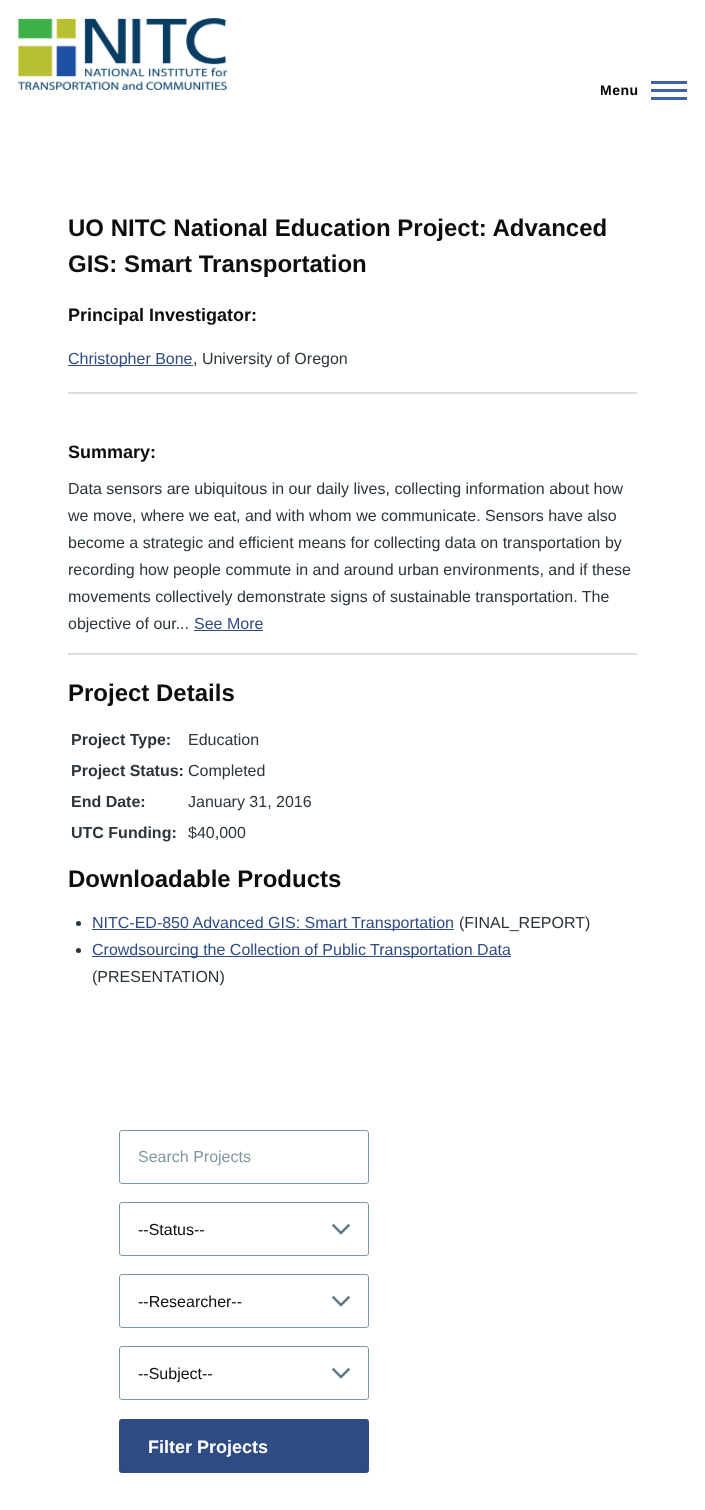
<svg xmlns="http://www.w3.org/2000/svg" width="705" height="1510">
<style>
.a{font:bold 14px Liberation Sans;letter-spacing:0.5px;fill:#000}
.b{font:bold 24px Liberation Sans;fill:#0b0d0f}
.c{font:bold 18px Liberation Sans;fill:#0b0d0f}
.d{font:16px Liberation Sans;fill:#2e4b84}
.e{font:16px Liberation Sans;fill:#2b353b}
.f{font:bold 16px Liberation Sans;fill:#2b353b}
.g{font:16px Liberation Sans;fill:#8196a2}
.h{font:16px Liberation Sans;fill:#0b0d0f}
.i{font:bold 18px Liberation Sans;fill:#fff}
</style>
<defs>
<clipPath id="clip1"><path d="M138 1365h176v17H138z"/></clipPath>
</defs>
<rect width="100%" height="100%" fill="#fff"/>
<image href="1.png" x="18" y="18" width="209" height="72"/>
<path fill="#3d63ae" d="M651 89h36v3H651z"/>
<path fill="#3d63ae" d="M651 81h36v3H651z"/>
<path fill="#3d63ae" d="M651 97h36v3H651z"/>
<path fill="#2e4b84" d="M68 365h125v1H68z"/>
<path fill="#ddd" d="M68 392h569v2H68z"/>
<path fill="#2e4b84" d="M194 630h69v1H194z"/>
<path fill="#ddd" d="M68 653h569v2H68z"/>
<circle fill="#2b353b" cx="78.5" cy="923.5" r="2.5"/>
<path fill="#2e4b84" d="M92 929h362v1H92z"/>
<circle fill="#2b353b" cx="78.5" cy="950.5" r="2.5"/>
<path fill="#2e4b84" d="M92 956h419v1H92z"/>
<rect fill="none" stroke="#8196a2" x="119.5" y="1130.5" width="249" height="53" rx="2.5"/>
<image href="2.png" x="332" y="1224" width="18" height="11"/>
<rect fill="none" stroke="#8196a2" x="119.5" y="1202.5" width="249" height="53" rx="2.5"/>
<image href="2.png" x="332" y="1296" width="18" height="11"/>
<rect fill="none" stroke="#8196a2" x="119.5" y="1274.5" width="249" height="53" rx="2.5"/>
<image href="2.png" x="332" y="1368" width="18" height="11"/>
<rect fill="none" stroke="#8196a2" x="119.5" y="1346.5" width="249" height="53" rx="2.5"/>
<rect fill="#2e4b84" stroke="#2e4b84" stroke-width="2" x="120" y="1420" width="248" height="52" rx="2"/>
<text class="a" x="600" y="95">Menu</text>
<text class="b" x="68" y="236">UO NITC National Education Project: Advanced</text>
<text class="b" x="68" y="272">GIS: Smart Transportation</text>
<text class="c" x="68" y="321">Principal Investigator:</text>
<text class="d" x="68" y="364">Christopher Bone</text>
<text class="e" x="193" y="364">, University of Oregon</text>
<text class="c" x="68" y="458">Summary:</text>
<text class="e" x="68" y="494">Data sensors are ubiquitous in our daily lives, collecting information about how</text>
<text class="e" x="68" y="521">we move, where we eat, and with whom we communicate. Sensors have also</text>
<text class="e" x="68" y="548">become a strategic and efficient means for collecting data on transportation by</text>
<text class="e" x="68" y="575">recording how people commute in and around urban environments, and if these</text>
<text class="e" x="68" y="602">movements collectively demonstrate signs of sustainable transportation. The</text>
<text class="e" x="68" y="629">objective of our...</text>
<text class="d" x="194" y="629">See More</text>
<text class="b" x="68" y="701">Project Details</text>
<text class="f" x="71" y="745">Project Type:</text>
<text class="e" x="188" y="745">Education</text>
<text class="f" x="71" y="776">Project Status:</text>
<text class="e" x="188" y="776">Completed</text>
<text class="f" x="71" y="807">End Date:</text>
<text class="e" x="188" y="807">January 31, 2016</text>
<text class="f" x="71" y="838">UTC Funding:</text>
<text class="e" x="188" y="838">$40,000</text>
<text class="b" x="68" y="887">Downloadable Products</text>
<text class="d" x="92" y="928">NITC-ED-850 Advanced GIS: Smart Transportation</text>
<text class="e" x="459" y="928">(FINAL_REPORT)</text>
<text class="d" x="92" y="955">Crowdsourcing the Collection of Public Transportation Data</text>
<text class="e" x="92" y="982">(PRESENTATION)</text>
<text class="g" x="138" y="1162">Search Projects</text>
<text class="h" x="138" y="1235">--Status--</text>
<text class="h" x="138" y="1307">--Researcher--</text>
<g clip-path="url(#clip1)">
<text class="h" x="138" y="1379">--Subject--</text>
</g>
<text class="i" x="148" y="1453">Filter Projects</text>
</svg>
